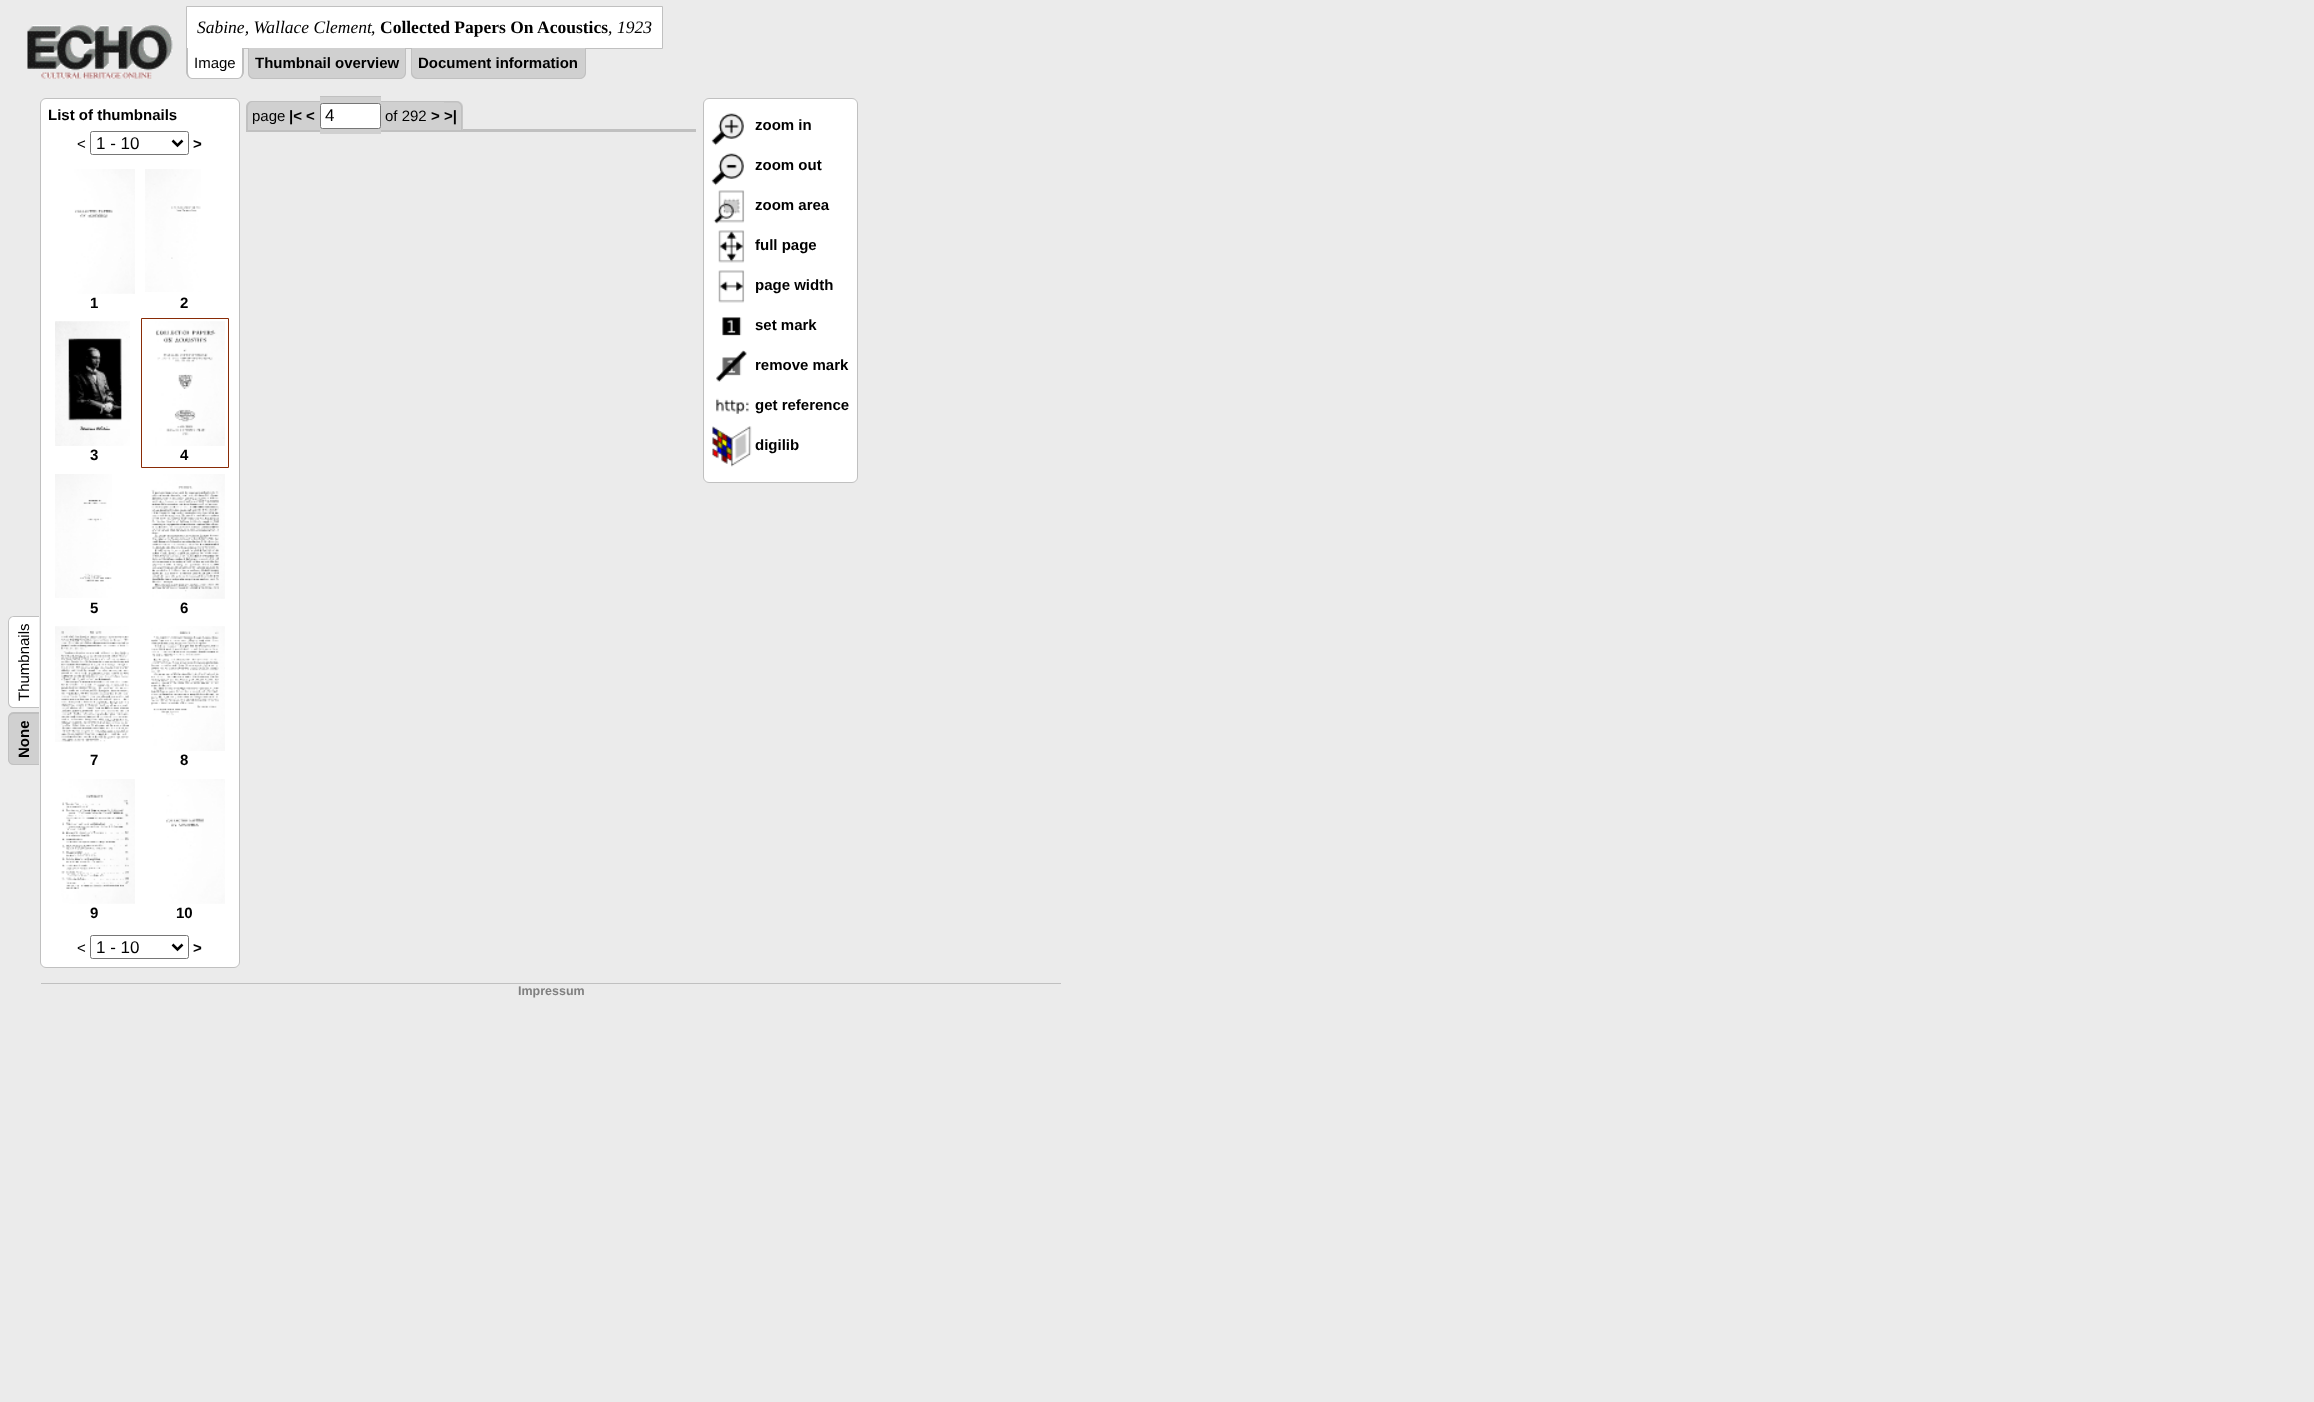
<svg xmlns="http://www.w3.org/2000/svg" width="2314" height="1402">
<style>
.a{font:italic 17.5px Liberation Serif;fill:#000}
.b{font:17.5px Liberation Serif;fill:#000}
.c{font:bold 17.5px Liberation Serif;fill:#000}
.d{font:15px Liberation Sans;fill:#000}
.e{font:bold 15px Liberation Sans;fill:#000}
.f{font:17px Liberation Sans;fill:#000}
.g{font:bold 12.5px Liberation Sans;fill:#808080}
</style>
<rect width="100%" height="100%" fill="#ebebeb"/>
<image href="1.png" x="27" y="25" width="146" height="54"/>
<path fill="#fff" stroke="#c0c0c0" d="M186.5 6.5h476v42H186.5z"/>
<path fill="#fff" d="M186 48h58v25c0 3.5-2.5 6-6 6h-46c-3.5 0-6-2.5-6-6z"/>
<path fill="#c0c0c0" fill-rule="evenodd" d="M186 48h58v24c0 4-3 7-6 7h-46c-3 0-6-3-6-7zm2 0h54v24c0 3-2 6-4 6h-46c-2 0-4-3-4-6z"/>
<path fill="#d0d0d0" d="M248 48h158v25c0 3.5-2.5 6-6 6h-146c-3.5 0-6-2.5-6-6z"/>
<path fill="#c0c0c0" fill-rule="evenodd" d="M248 48h158v24c0 4-3 7-6 7h-146c-4 0-6-3-6-7zm1 0h156v24c0 3-2 6-5 6h-146c-3 0-5-3-5-6z"/>
<path fill="#d0d0d0" d="M411 48h175v25c0 3.5-2.5 6-6 6h-163c-3.5 0-6-2.5-6-6z"/>
<path fill="#c0c0c0" fill-rule="evenodd" d="M411 48h175v24c0 4-3 7-6 7h-162c-4 0-7-3-7-7zm1 0h173v24c0 3-2 6-5 6h-162c-3 0-6-3-6-6z"/>
<path fill="#fff" d="M8 702v-80c0-3 2-6 6-6h25v92h-25c-4 0-6-2-6-6z"/>
<path fill="#c0c0c0" fill-rule="evenodd" d="M8 702v-80c0-3 2-6 6-6h25v92h-25c-4 0-6-2-6-6zm1 0v-80c0-3 2-5 5-5h25v90h-25c-3 0-5-2-5-5z"/>
<path fill="#d0d0d0" d="M8 759v-40c0-4 2-7 6-7h25v53h-25c-4 0-6-3-6-6z"/>
<path fill="#c0c0c0" fill-rule="evenodd" d="M8 759v-40c0-4 2-7 6-7h25v53h-25c-4 0-6-3-6-6zm1 0v-40c0-3 2-5 5-5h25v50h-25c-3 0-5-2-5-5z"/>
<rect fill="#fff" stroke="#c0c0c0" x="40.5" y="98.5" width="199" height="869" rx="5.5"/>
<rect fill="none" stroke="#767676" x="90.5" y="131.5" width="98" height="23" rx="2"/>
<path fill="none" stroke="#000" stroke-width="2.5" d="M172.5 140.5l5 5l5-5"/>
<image href="2.png" x="74" y="169" width="61" height="125"/>
<image href="3.png" x="145" y="169" width="56" height="123"/>
<image href="4.png" x="55" y="321" width="75" height="125"/>
<path fill="none" stroke="#892b06" d="M141.5 318.5h87v149H141.5z"/>
<image href="5.png" x="155" y="321" width="70" height="125"/>
<image href="6.png" x="55" y="474" width="57" height="124"/>
<image href="7.png" x="151" y="474" width="74" height="125"/>
<image href="8.png" x="55" y="626" width="74" height="116"/>
<image href="9.png" x="151" y="626" width="74" height="125"/>
<image href="10.png" x="61" y="779" width="74" height="125"/>
<image href="11.png" x="166" y="779" width="59" height="125"/>
<rect fill="none" stroke="#767676" x="90.5" y="935.5" width="98" height="23" rx="2"/>
<path fill="none" stroke="#000" stroke-width="2.5" d="M172.5 944.5l5 5l5-5"/>
<path fill="#c0c0c0" d="M246 129h450v3H246z"/>
<path fill="#d0d0d0" d="M252 101h38v29h-44v-23c0-3.5 2.5-6 6-6z"/>
<path fill="#c0c0c0" fill-rule="evenodd" d="M252 101h38v29h-44v-22c0-4 3-7 6-7zm0 1h38v28h-42v-22c0-3 2-6 4-6z"/>
<path fill="#d0d0d0" d="M290 102h13v28H290z"/>
<path fill="#c0c0c0" d="M290 101h13v1H290z"/>
<path fill="#d0d0d0" d="M303 101h3v29H303z"/>
<path fill="#c0c0c0" d="M303 101h12v1H303z"/>
<path fill="#d0d0d0" d="M306 102h9v28H306z"/>
<path fill="#d0d0d0" d="M315 101h5v29H315z"/>
<path fill="#c0c0c0" d="M315 101h5v1H315z"/>
<path fill="#d0d0d0" d="M320 97h61v37H320z"/>
<path fill="#c0c0c0" d="M320 96h61v1H320z"/>
<path fill="#d0d0d0" d="M381 101h4v29H381z"/>
<path fill="#c0c0c0" d="M381 101h59v1H381z"/>
<path fill="#d0d0d0" d="M385 102h55v28H385z"/>
<path fill="#d0d0d0" d="M440 101h4v29H440z"/>
<path fill="#c0c0c0" d="M440 101h4v1H440z"/>
<path fill="#d0d0d0" d="M444 101h13c3.5 0 6 2.5 6 6v23h-19z"/>
<path fill="#c0c0c0" fill-rule="evenodd" d="M444 101h12c3.5 0 6.5 3 6.5 6.5v22.5h-18.5zm0 1.5h12c3 0 5 2 5 5v22.5h-17z"/>
<rect fill="#fff" stroke="#767676" x="320.5" y="103.5" width="60" height="25" rx="2"/>
<rect fill="#fff" stroke="#c0c0c0" x="703.5" y="98.5" width="154" height="384" rx="5.5"/>
<image href="12.png" x="711" y="113" width="33" height="33"/>
<image href="13.png" x="711" y="153" width="33" height="33"/>
<image href="14.png" x="713" y="190" width="32" height="34"/>
<image href="15.png" x="718" y="230" width="27" height="33"/>
<image href="16.png" x="718" y="270" width="27" height="33"/>
<image href="17.png" x="722" y="317" width="20" height="19"/>
<image href="18.png" x="716" y="350" width="31" height="32"/>
<image href="19.png" x="716" y="398" width="33" height="16"/>
<image href="20.png" x="712" y="426" width="40" height="41"/>
<path fill="#c0c0c0" d="M41 983h1020v1H41z"/>
<text class="a" x="197" y="33">Sabine, Wallace Clement</text>
<text class="b" x="371" y="33">,</text>
<text class="c" x="380" y="33">Collected Papers On Acoustics</text>
<text class="b" x="608" y="33">,</text>
<text class="a" x="617" y="33">1923</text>
<text class="d" x="194" y="68">Image</text>
<text class="e" x="255" y="68">Thumbnail overview</text>
<text class="e" x="418" y="68">Document information</text>
<text class="d" x="29" y="701" transform="rotate(-90 29 701)">Thumbnails</text>
<text class="e" x="29" y="758" transform="rotate(-90 29 758)">None</text>
<text class="e" x="48" y="120">List of thumbnails</text>
<text class="d" x="77" y="149">&lt;</text>
<text class="f" x="96" y="149">1 - 10</text>
<text class="e" x="193" y="149">&gt;</text>
<text class="e" x="90" y="308">1</text>
<text class="e" x="180" y="308">2</text>
<text class="e" x="90" y="460">3</text>
<text class="e" x="180" y="460">4</text>
<text class="e" x="90" y="613">5</text>
<text class="e" x="180" y="613">6</text>
<text class="e" x="90" y="765">7</text>
<text class="e" x="180" y="765">8</text>
<text class="e" x="90" y="918">9</text>
<text class="e" x="176" y="918">10</text>
<text class="d" x="77" y="953">&lt;</text>
<text class="f" x="96" y="953">1 - 10</text>
<text class="e" x="193" y="953">&gt;</text>
<text class="d" x="252" y="121">page</text>
<text class="e" x="289" y="121">|&lt; &lt;</text>
<text class="f" x="325" y="121">4</text>
<text class="d" x="385" y="121">of 292</text>
<text class="e" x="431" y="121">&gt; &gt;|</text>
<text class="e" x="755" y="130">zoom in</text>
<text class="e" x="755" y="170">zoom out</text>
<text class="e" x="755" y="210">zoom area</text>
<text class="e" x="755" y="250">full page</text>
<text class="e" x="755" y="290">page width</text>
<text class="e" x="755" y="330">set mark</text>
<text class="e" x="755" y="370">remove mark</text>
<text class="e" x="755" y="410">get reference</text>
<text class="e" x="755" y="450">digilib</text>
<text class="g" x="518" y="995">Impressum</text>
</svg>
